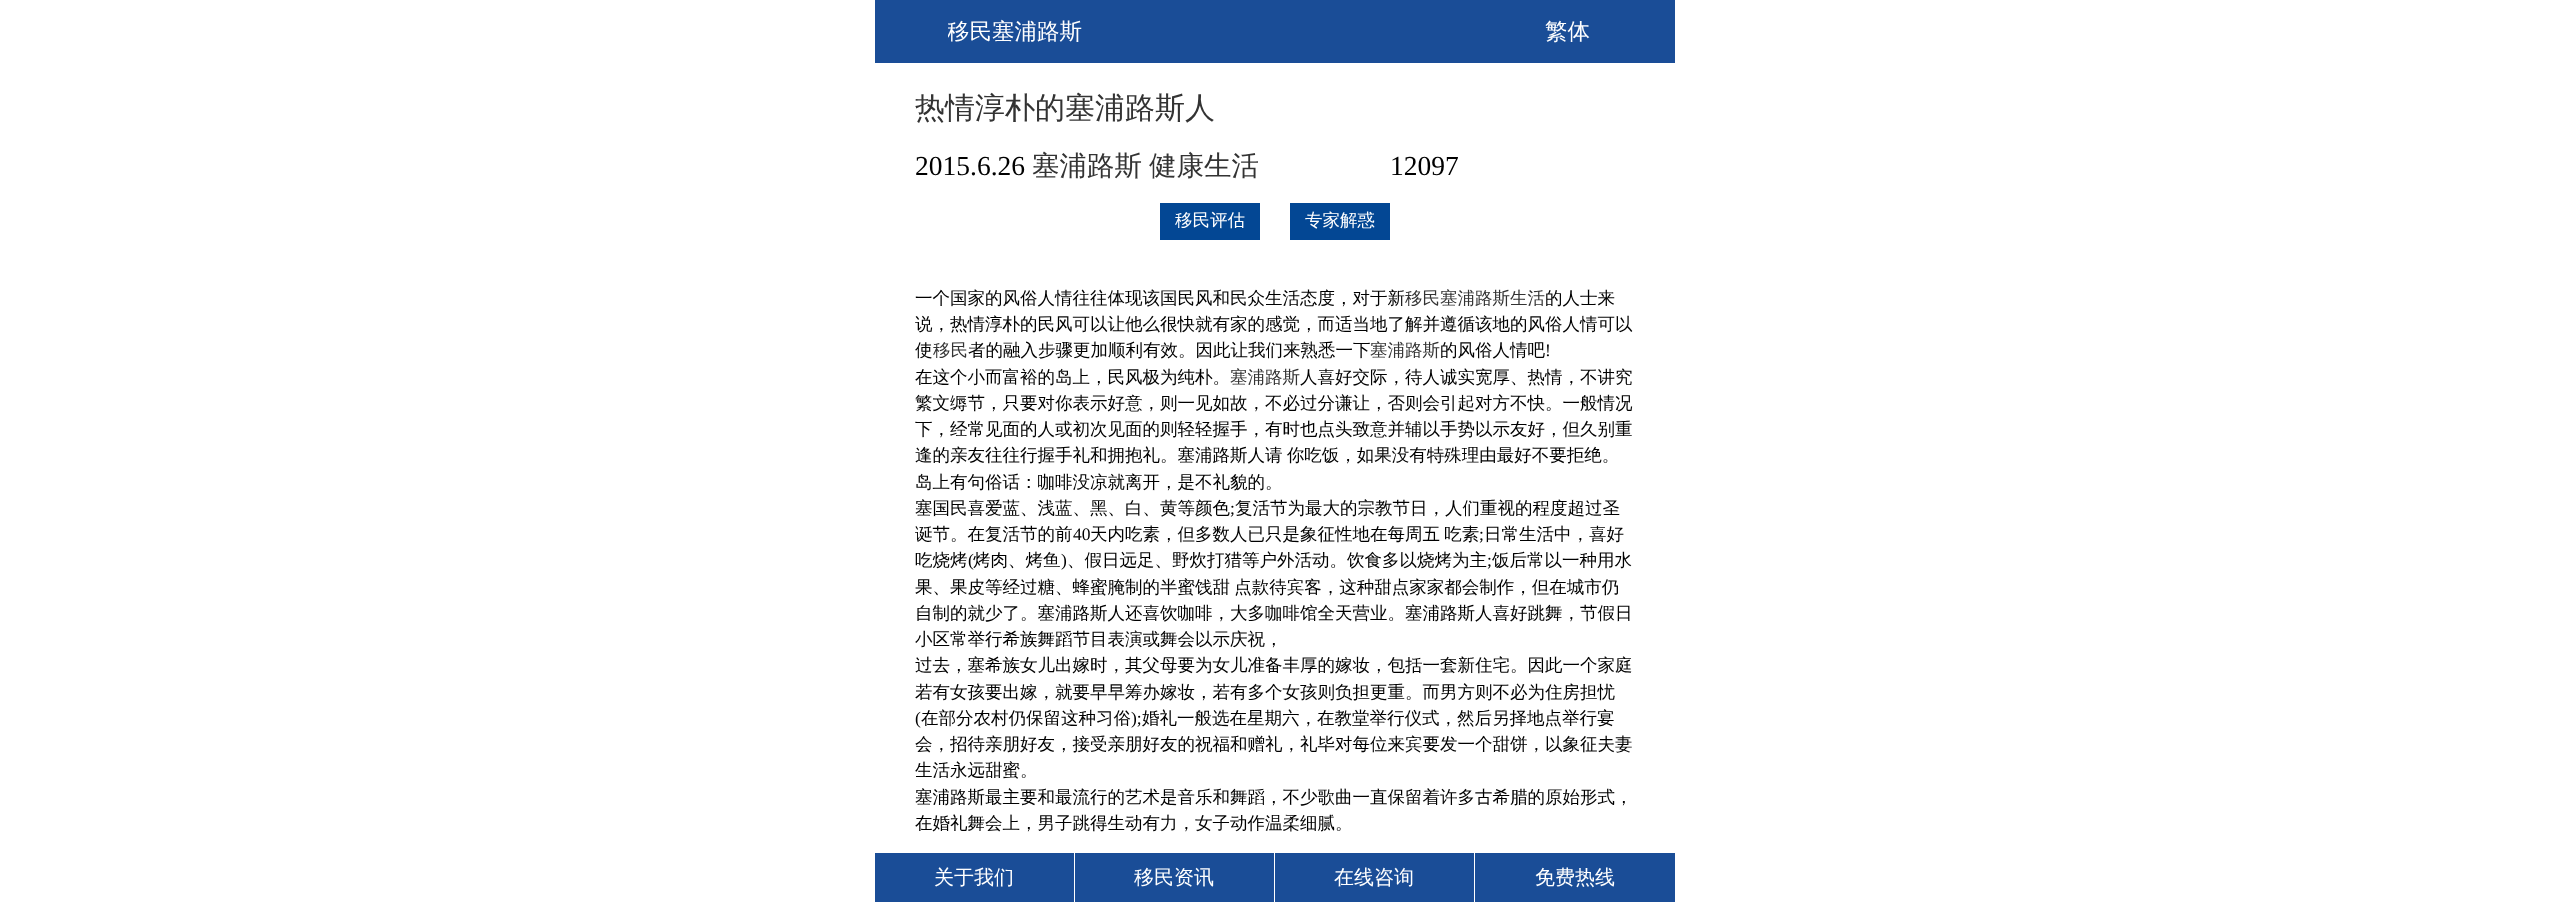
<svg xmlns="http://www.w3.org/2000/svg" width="2550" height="902">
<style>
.a{font:500 22.5px WenQuanYi Zen Hei;fill:#fff}
.b{font:500 30px WenQuanYi Zen Hei;fill:#333}
.c{font:27.5px Liberation Serif;fill:#000}
.d{font:500 27.5px WenQuanYi Zen Hei;fill:#333}
.e{font:500 17.5px WenQuanYi Zen Hei;fill:#fff}
.f{font:500 17.5px WenQuanYi Zen Hei;fill:#000}
.g{font:500 17.5px WenQuanYi Zen Hei;fill:#333}
.h{font:17.5px Liberation Serif;fill:#000}
.i{font:500 20px WenQuanYi Zen Hei;fill:#fff}
</style>
<defs>
<clipPath id="clip1"><path d="M948 0h640v63H948z"/></clipPath>
</defs>
<rect width="100%" height="100%" fill="#fff"/>
<path fill="#1a4d97" d="M875 0h800v63H875z"/>
<path fill="#034794" d="M1160 203h100v37H1160z"/>
<path fill="#034794" d="M1290 203h100v37H1290z"/>
<path fill="#1a4d97" d="M875 853h199v49H875z"/>
<path fill="#1a4d97" d="M1075 853h199v49H1075z"/>
<path fill="#1a4d97" d="M1275 853h199v49H1275z"/>
<path fill="#1a4d97" d="M1475 853h200v49H1475z"/>
<g clip-path="url(#clip1)">
<text class="a" x="947" y="39">移民塞浦路斯</text>
</g>
<text class="a" x="1545" y="39">繁体</text>
<text class="b" x="915" y="118">热情淳朴的塞浦路斯人</text>
<text class="c" x="915" y="175">2015.6.26</text>
<text class="d" x="1032" y="175">塞浦路斯</text>
<text class="d" x="1149" y="175">健康生活</text>
<text class="c" x="1390" y="175">12097</text>
<text class="e" x="1175" y="226">移民评估</text>
<text class="e" x="1305" y="226">专家解惑</text>
<text class="f" x="915" y="304">一个国家的风俗人情往往体现该国民风和民众生活态度，对于新</text>
<text class="g" x="1405" y="304">移民塞浦路斯生活</text>
<text class="f" x="1545" y="304">的人士来</text>
<text class="f" x="915" y="330">说，热情淳朴的民风可以让他么很快就有家的感觉，而适当地了解并遵循该地的风俗人情可以</text>
<text class="f" x="915" y="356">使</text>
<text class="g" x="933" y="356">移民</text>
<text class="f" x="968" y="356">者的融入步骤更加顺利有效。因此让我们来熟悉一下</text>
<text class="g" x="1370" y="356">塞浦路斯</text>
<text class="f" x="1440" y="356">的风俗人情吧</text>
<text class="h" x="1545" y="356">!</text>
<text class="f" x="915" y="383">在这个小而富裕的岛上，民风极为纯朴。</text>
<text class="g" x="1230" y="383">塞浦路斯</text>
<text class="f" x="1300" y="383">人喜好交际，待人诚实宽厚、热情，不讲究</text>
<text class="f" x="915" y="409">繁文缛节，只要对你表示好意，则一见如故，不必过分谦让，否则会引起对方不快。一般情况</text>
<text class="f" x="915" y="435">下，经常见面的人或初次见面的则轻轻握手，有时也点头致意并辅以手势以示友好，但久别重</text>
<text class="f" x="915" y="461" word-spacing="-1">逢的亲友往往行握手礼和拥抱礼。塞浦路斯人请 你吃饭，如果没有特殊理由最好不要拒绝。</text>
<text class="f" x="915" y="488">岛上有句俗话：咖啡没凉就离开，是不礼貌的。</text>
<text class="f" x="915" y="514">塞国民喜爱蓝、浅蓝、黑、白、黄等颜色</text>
<text class="h" x="1230" y="514">;</text>
<text class="f" x="1235" y="514">复活节为最大的宗教节日，人们重视的程度超过圣</text>
<text class="f" x="915" y="540">诞节。在复活节的前</text>
<text class="h" x="1073" y="540">40</text>
<text class="f" x="1090" y="540" word-spacing="-1">天内吃素，但多数人已只是象征性地在每周五 吃素</text>
<text class="h" x="1479" y="540">;</text>
<text class="f" x="1484" y="540">日常生活中，喜好</text>
<text class="f" x="915" y="566">吃烧烤</text>
<text class="h" x="968" y="566">(</text>
<text class="f" x="973" y="566">烤肉、烤鱼</text>
<text class="h" x="1061" y="566">)</text>
<text class="f" x="1067" y="566">、假日远足、野炊打猎等户外活动。饮食多以烧烤为主</text>
<text class="h" x="1487" y="566">;</text>
<text class="f" x="1492" y="566">饭后常以一种用水</text>
<text class="f" x="915" y="593" word-spacing="-1">果、果皮等经过糖、蜂蜜腌制的半蜜饯甜 点款待宾客，这种甜点家家都会制作，但在城市仍</text>
<text class="f" x="915" y="619">自制的就少了。塞浦路斯人还喜饮咖啡，大多咖啡馆全天营业。塞浦路斯人喜好跳舞，节假日</text>
<text class="f" x="915" y="645">小区常举行希族舞蹈节目表演或舞会以示庆祝，</text>
<text class="f" x="915" y="671">过去，塞希族女儿出嫁时，其父母要为女儿准备丰厚的嫁妆，包括一套新住宅。因此一个家庭</text>
<text class="f" x="915" y="698">若有女孩要出嫁，就要早早筹办嫁妆，若有多个女孩则负担更重。而男方则不必为住房担忧</text>
<text class="h" x="915" y="724">(</text>
<text class="f" x="921" y="724">在部分农村仍保留这种习俗</text>
<text class="h" x="1131" y="724">);</text>
<text class="f" x="1142" y="724">婚礼一般选在星期六，在教堂举行仪式，然后另择地点举行宴</text>
<text class="f" x="915" y="750">会，招待亲朋好友，接受亲朋好友的祝福和赠礼，礼毕对每位来宾要发一个甜饼，以象征夫妻</text>
<text class="f" x="915" y="776">生活永远甜蜜。</text>
<text class="f" x="915" y="803">塞浦路斯最主要和最流行的艺术是音乐和舞蹈，不少歌曲一直保留着许多古希腊的原始形式，</text>
<text class="f" x="915" y="829">在婚礼舞会上，男子跳得生动有力，女子动作温柔细腻。</text>
<text class="i" x="934" y="884">关于我们</text>
<text class="i" x="1134" y="884">移民资讯</text>
<text class="i" x="1334" y="884">在线咨询</text>
<text class="i" x="1535" y="884">免费热线</text>
</svg>
